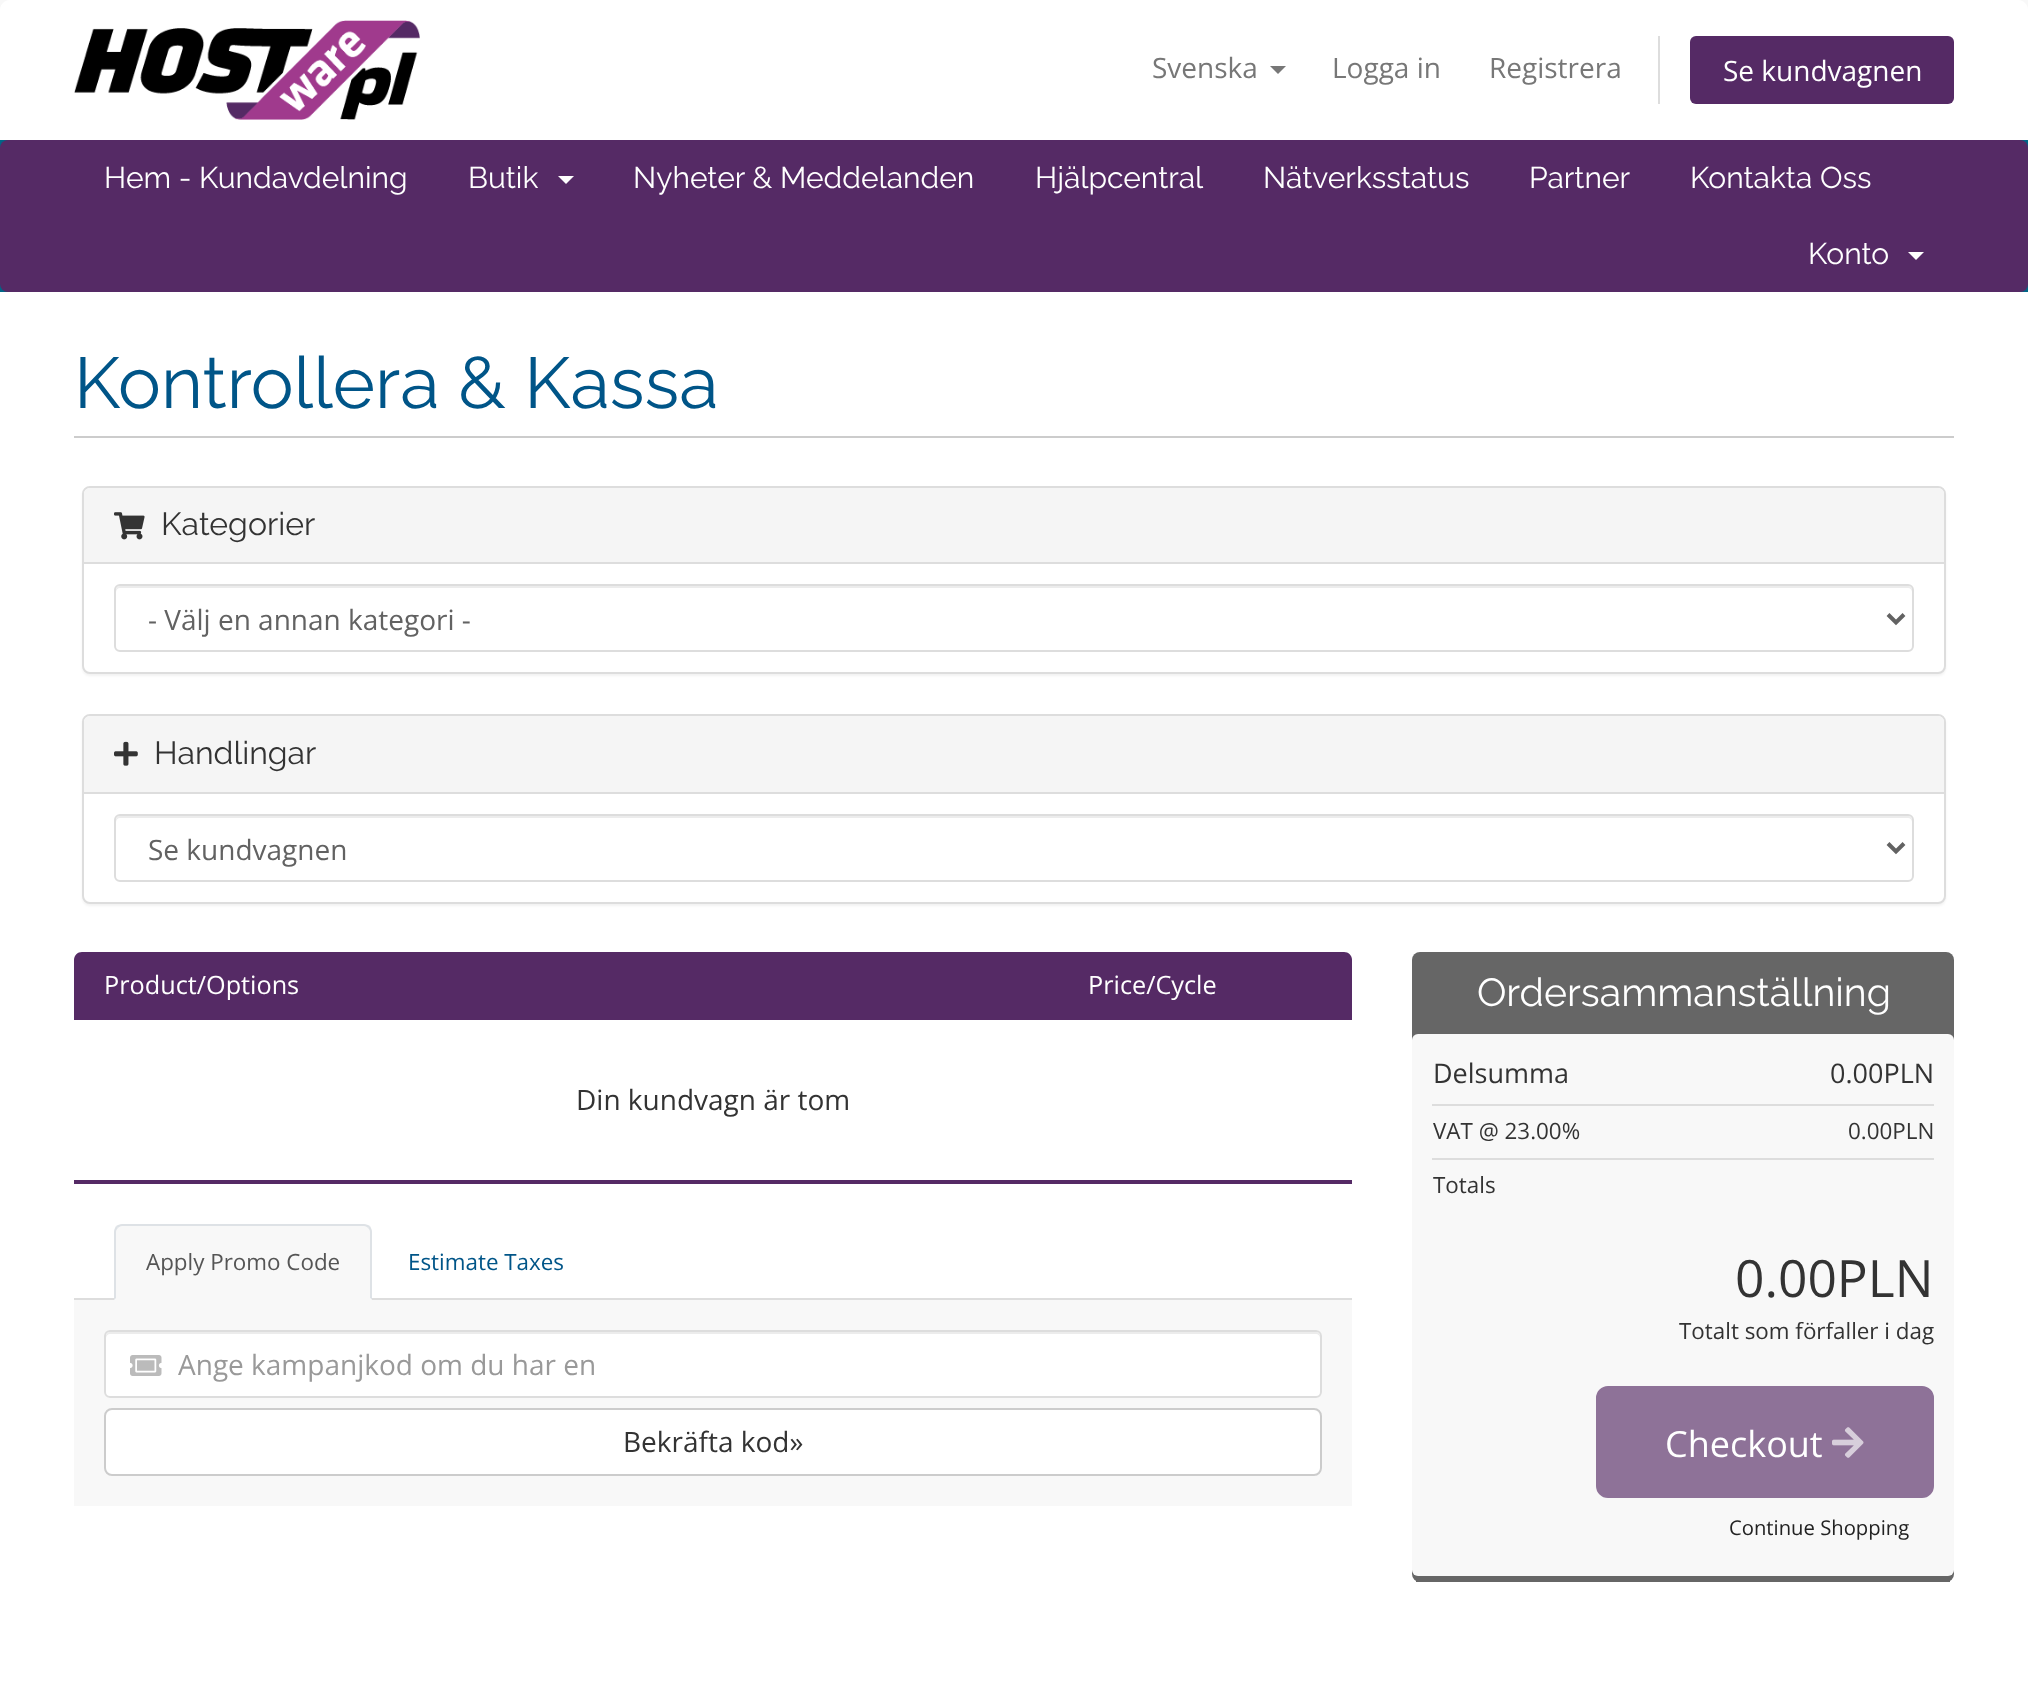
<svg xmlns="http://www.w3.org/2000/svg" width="2028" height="1693">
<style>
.a{font:28px Open Sans;fill:#777}
.b{font:28px Open Sans;fill:#fff}
.c{font:30px Raleway;fill:#fff}
.d{font:72px Raleway;fill:#058}
.e{font:32px Raleway;fill:#333}
.f{font:28px Open Sans;fill:#626262}
.g{font:25.25px Open Sans;fill:#fff}
.h{font:28px Open Sans;fill:#333}
.i{font:22.4px Open Sans;fill:#555}
.j{font:22.4px Open Sans;fill:#058}
.k{font:28px Open Sans;fill:#999}
.l{font:39.25px Raleway;fill:#fff}
.m{font:27px Open Sans;fill:#333}
.n{font:22.4px Open Sans;fill:#333}
.o{font:51.5px Open Sans;fill:#333}
.p{font:36px Open Sans;fill:#fff}
.q{font:20.25px Open Sans;fill:#222}
</style>
<rect width="100%" height="100%" fill="#f8f8f8"/>
<path fill="#fff" d="M10 0h2008c5.5 0 10 4.5 10 10v130h-2028v-130c0-5.5 4.5-10 10-10z"/>
<image href="1.png" x="74" y="20" width="346" height="100"/>
<path fill="#777" d="M1270 66h16l-8 8z"/>
<path fill="#ddd" d="M1658 36h2v68H1658z"/>
<rect fill="#552a65" x="1690" y="36" width="264" height="68" rx="6"/>
<path fill="#006687" d="M0 140h2028v152H0z"/>
<rect fill="#552a65" y="140" width="2028" height="152" rx="8"/>
<path fill="#fff" d="M558 176h16l-8 8z"/>
<path fill="#fff" d="M1908 252h16l-8 8z"/>
<path fill="#fff" d="M0 292h2028v1401H0z"/>
<path fill="#ccc" d="M74 436h1880v2H74z"/>
<rect fill="#0000000d" filter="blur(1px)" x="82" y="488" width="1864" height="188" rx="8"/>
<rect fill="#fff" stroke="#ddd" stroke-width="2" x="83" y="487" width="1862" height="186" rx="7"/>
<path fill="#f5f5f5" d="M90 488h1848c3.5 0 6 2.5 6 6v70h-1860v-70c0-3.5 2.5-6 6-6z"/>
<path fill="#ddd" d="M84 562h1860v2H84z"/>
<image href="2.png" x="114" y="512" width="31" height="28"/>
<path fill="#ececec" d="M120 588h1788c2 0 4 2 4 4v-2c0-2-2-4-4-4h-1788c-2 0-4 2-4 4v2c0-2 2-4 4-4z"/>
<rect fill="none" stroke="#ddd" stroke-width="2" x="115" y="585" width="1798" height="66" rx="5"/>
<path fill="none" stroke="#626262" stroke-width="4" d="M1888 614.5l8 8l8-8"/>
<rect fill="#0000000d" filter="blur(1px)" x="82" y="716" width="1864" height="190" rx="8"/>
<rect fill="#fff" stroke="#ddd" stroke-width="2" x="83" y="715" width="1862" height="188" rx="7"/>
<path fill="#f5f5f5" d="M90 716h1848c3.5 0 6 2.5 6 6v72h-1860v-72c0-3.5 2.5-6 6-6z"/>
<path fill="#ddd" d="M84 792h1860v2H84z"/>
<image href="3.png" x="114" y="741" width="24" height="25"/>
<path fill="#ececec" d="M120 818h1788c2 0 4 2 4 4v-2c0-2-2-4-4-4h-1788c-2 0-4 2-4 4v2c0-2 2-4 4-4z"/>
<rect fill="none" stroke="#ddd" stroke-width="2" x="115" y="815" width="1798" height="66" rx="5"/>
<path fill="none" stroke="#626262" stroke-width="4" d="M1888 843.5l8 8l8-8"/>
<path fill="#552a65" d="M82 952h1262c4.5 0 8 3.5 8 8v60h-1278v-60c0-4.5 3.5-8 8-8z"/>
<path fill="#552a65" d="M74 1180h1278v4H74z"/>
<path fill="#ddd" d="M74 1298h1278v2H74z"/>
<path fill="#f8f8f8" d="M122 1224h242c4.5 0 8 3.5 8 8v68h-258v-68c0-4.5 3.5-8 8-8z"/>
<path fill="#dee2e6" d="M122 1224c-2 0-4 1-6 2l2 2c1-1 2-2 4-2h242c2 0 3 1 4 2l2-2c-2-1-4-2-6-2z"/>
<path fill="#dee2e6" d="M372 1300v-68c0-2-1-4-2-6l-2 2c1 1 2 2 2 4v66z"/>
<path fill="#f8f8f8" d="M372 1300l-2-2h-254l-2 2z"/>
<path fill="#dee2e6" d="M114 1300l2-2v-66c0-2 1-3 2-4l-2-2c-1 2-2 4-2 6z"/>
<path fill="#f8f8f8" d="M74 1300h1278v206H74z"/>
<rect fill="#fff" x="104" y="1330" width="1218" height="68" rx="6"/>
<path fill="#ececec" d="M110 1334h1206c2 0 4 2 4 4v-2c0-2-2-4-4-4h-1206c-2 0-4 2-4 4v2c0-2 2-4 4-4z"/>
<rect fill="none" stroke="#ddd" stroke-width="2" x="105" y="1331" width="1216" height="66" rx="5"/>
<image href="4.png" x="130" y="1355" width="32" height="21"/>
<rect fill="#fff" stroke="#ccc" stroke-width="2" x="105" y="1409" width="1216" height="66" rx="7"/>
<rect fill="#666" x="1412" y="952" width="542" height="630" rx="8"/>
<path fill="#666" d="M1416 1581h534v1H1416z"/>
<rect fill="#f8f8f8" x="1412" y="1034" width="542" height="542" rx="6"/>
<path fill="#ddd" d="M1432 1104h502v2H1432z"/>
<path fill="#ddd" d="M1432 1158h502v2H1432z"/>
<rect fill="#8e7298" stroke="#8e7298" stroke-width="2" x="1597" y="1387" width="336" height="110" rx="11"/>
<image href="5.png" x="1832" y="1427" width="32" height="31"/>
<text class="a" x="1152" y="78">Svenska</text>
<text class="a" x="1332" y="78">Logga in</text>
<text class="a" x="1489" y="78">Registrera</text>
<text class="b" x="1723" y="81">Se kundvagnen</text>
<text class="c" x="104" y="188">Hem - Kundavdelning</text>
<text class="c" x="468" y="188">Butik</text>
<text class="c" x="633" y="188">Nyheter &amp; Meddelanden</text>
<text class="c" x="1035" y="188">Hjälpcentral</text>
<text class="c" x="1263" y="188">Nätverksstatus</text>
<text class="c" x="1529" y="188">Partner</text>
<text class="c" x="1690" y="188">Kontakta Oss</text>
<text class="c" x="1808" y="264">Konto</text>
<text class="d" x="74" y="408">Kontrollera &amp; Kassa</text>
<text class="e" x="161" y="535">Kategorier</text>
<text class="f" x="148" y="630">- Välj en annan kategori -</text>
<text class="e" x="154" y="764">Handlingar</text>
<text class="f" x="148" y="860">Se kundvagnen</text>
<text class="g" x="104" y="994">Product/Options</text>
<text class="g" x="1088" y="994">Price/Cycle</text>
<text class="h" x="576" y="1110">Din kundvagn är tom</text>
<text class="i" x="146" y="1270">Apply Promo Code</text>
<text class="j" x="408" y="1270">Estimate Taxes</text>
<text class="k" x="178" y="1375">Ange kampanjkod om du har en</text>
<text class="h" x="623" y="1452">Bekräfta kod»</text>
<text class="l" x="1477" y="1006">Ordersammanställning</text>
<text class="m" x="1433" y="1083">Delsumma</text>
<text class="m" x="1830" y="1083">0.00PLN</text>
<text class="n" x="1433" y="1139">VAT @ 23.00%</text>
<text class="n" x="1848" y="1139">0.00PLN</text>
<text class="n" x="1433" y="1193">Totals</text>
<text class="o" x="1735" y="1297">0.00PLN</text>
<text class="n" x="1679" y="1339">Totalt som förfaller i dag</text>
<text class="p" x="1665" y="1457">Checkout</text>
<text class="q" x="1729" y="1535">Continue Shopping</text>
</svg>
